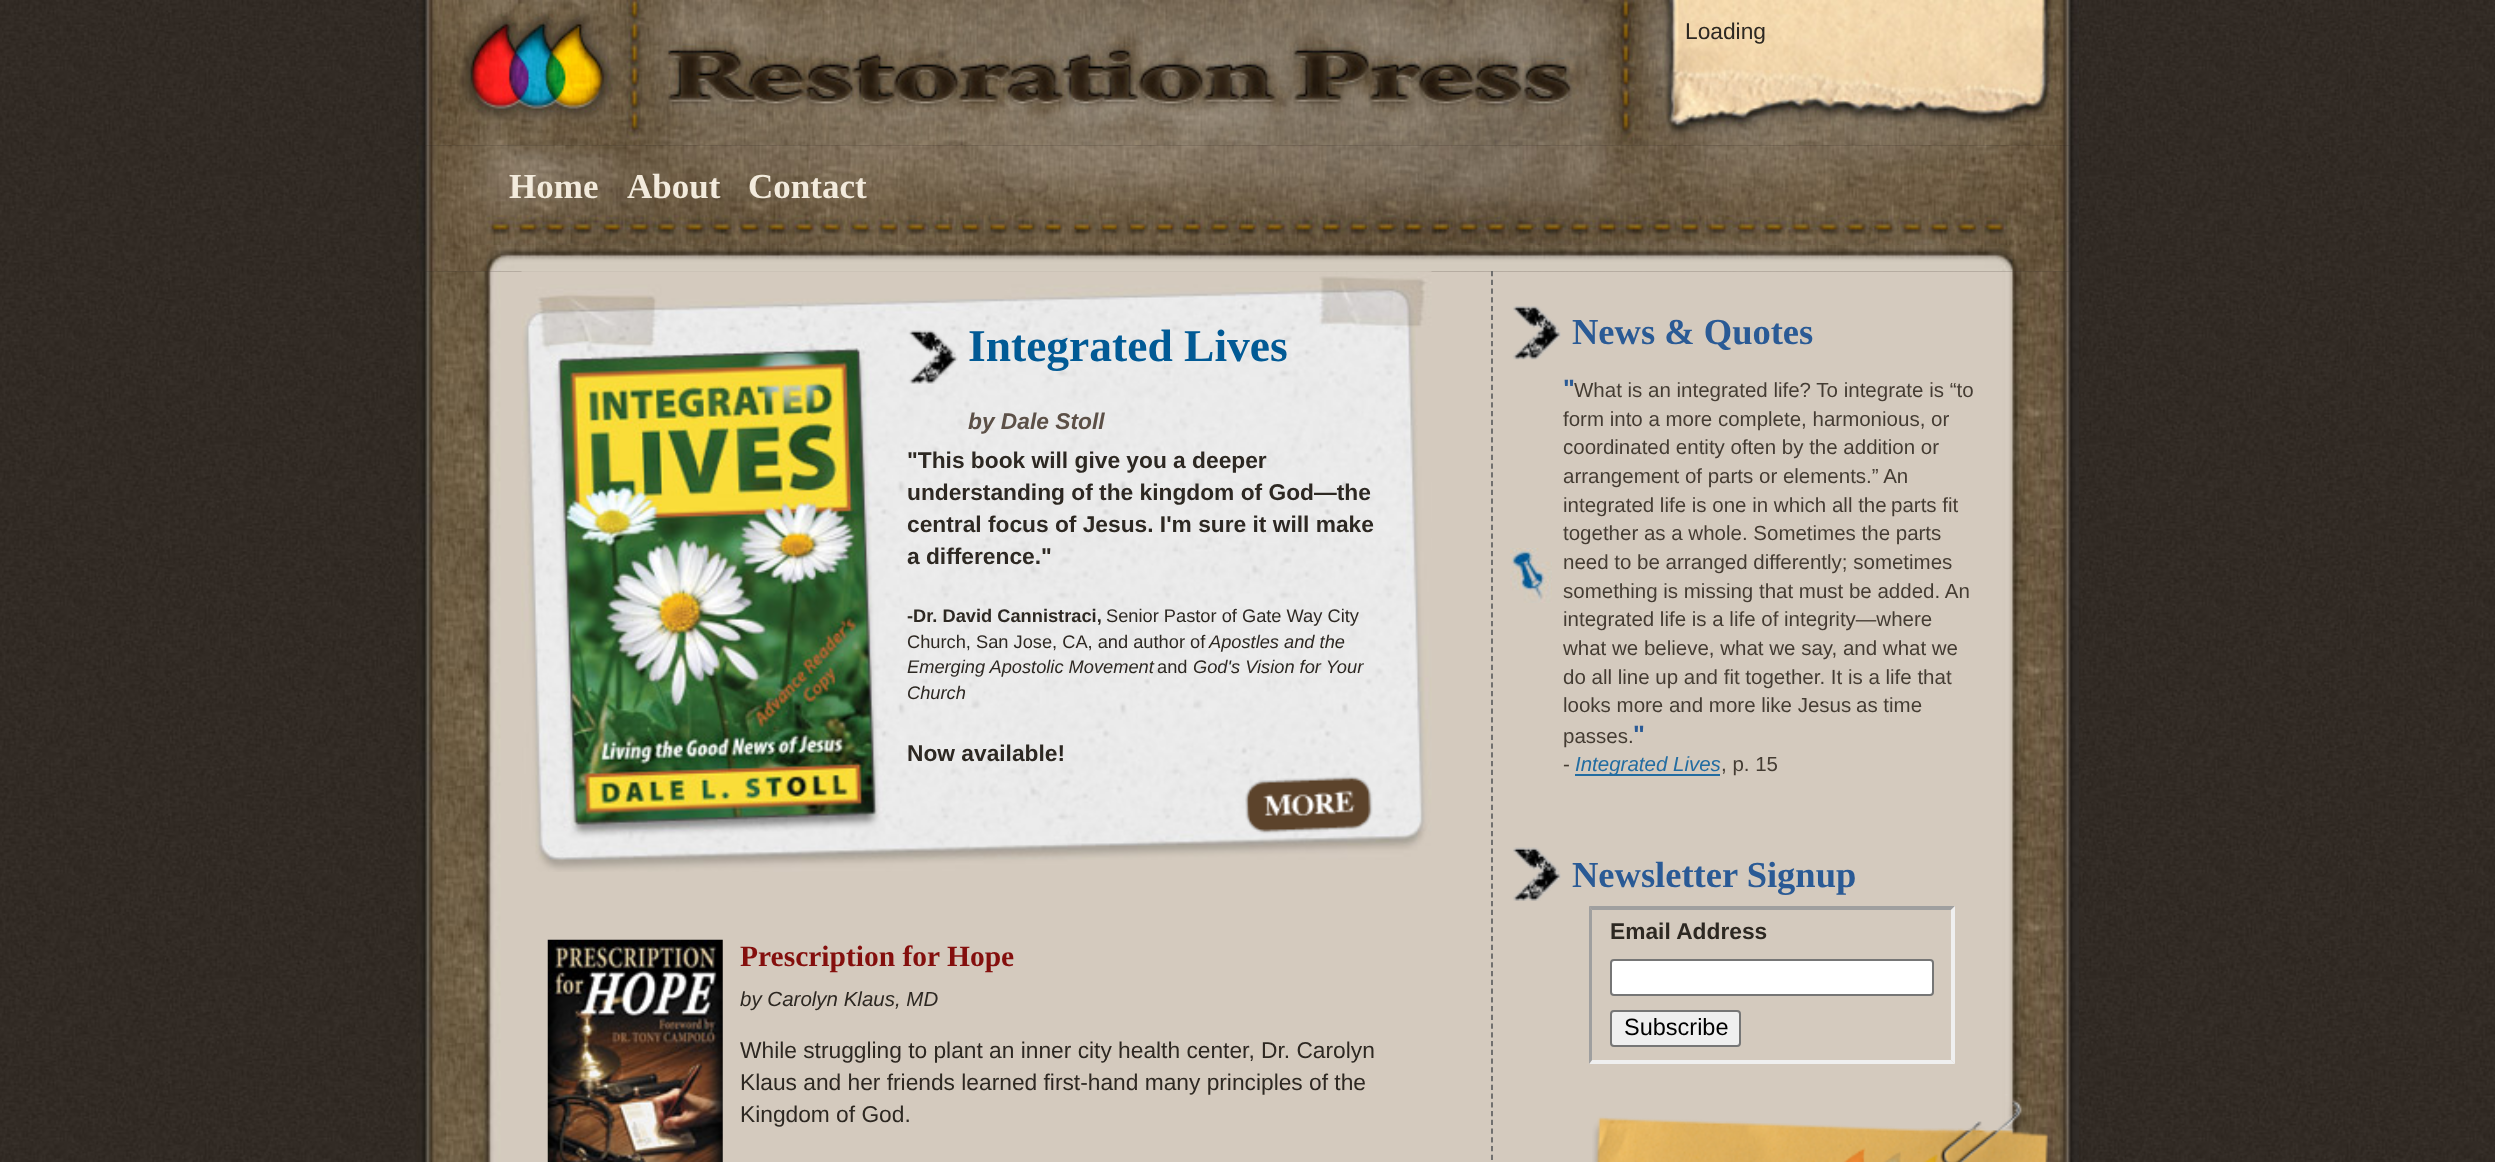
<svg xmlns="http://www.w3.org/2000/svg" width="2495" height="1162">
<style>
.a{font:22.75px Liberation Sans;fill:#2d2822}
.b{font:bold 35px Liberation Serif;fill:#f3ebdd}
.c{font:bold 45.5px Liberation Serif;fill:#015a95}
.d{font:italic bold 22.75px Liberation Sans;fill:#5c5047}
.e{font:bold 22.75px Liberation Sans;fill:#2d2822}
.f{font:bold 18.25px Liberation Sans;fill:#2d2822}
.g{font:18.25px Liberation Sans;fill:#2d2822}
.h{font:italic 18.25px Liberation Sans;fill:#2d2822}
.i{font:bold 36.5px Liberation Serif;fill:#2a5a95}
.j{font:bold 25px Liberation Sans;fill:#2a5a95}
.k{font:20.5px Liberation Sans;fill:#443c33}
.l{font:italic 20.5px Liberation Sans;fill:#226ca1}
.m{font:23.5px Liberation Sans;fill:#000}
.n{font:bold 29.5px Liberation Serif;fill:#840f0d}
.o{font:italic 20.5px Liberation Sans;fill:#2d2822}
</style>
<rect width="100%" height="100%" fill="#fff"/>
<image href="1.png" x="0" y="0" width="2495" height="1162"/>
<image href="2.png" x="416" y="0" width="1663" height="146"/>
<image href="3.png" x="416" y="145" width="1663" height="100"/>
<image href="4.png" x="417" y="245" width="1662" height="27"/>
<image href="5.png" x="416" y="271" width="1663" height="891"/>
<image href="6.png" x="521" y="271" width="911" height="601"/>
<image href="7.png" x="908" y="330" width="50" height="54"/>
<image href="8.png" x="1245" y="776" width="128" height="58"/>
<path fill="none" stroke="#666" stroke-width="1.8" stroke-dasharray="5.25 3.5" d="M1492 271v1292"/>
<image href="9.png" x="1513" y="306" width="48" height="54"/>
<image href="10.png" x="1510" y="548" width="42" height="55"/>
<path fill="#226ca1" d="M1575 774h145v2H1575z"/>
<image href="11.png" x="1513" y="847" width="48" height="54"/>
<path fill="#9f9f9f" d="M1589 906h366l-4 4h-359z"/>
<path fill="#efefef" d="M1955 906v158l-4-4v-150z"/>
<path fill="#efefef" d="M1955 1064h-366l3-4h359z"/>
<path fill="#9f9f9f" d="M1589 1064v-158l3 4v150z"/>
<rect fill="#fff" stroke="#767676" stroke-width="2" x="1611" y="960" width="322" height="35" rx="3"/>
<rect fill="#efefef" stroke="#767676" stroke-width="2" x="1611" y="1011" width="129" height="35" rx="3"/>
<image href="12.png" x="1592" y="1094" width="459" height="68"/>
<image href="13.png" x="547" y="939" width="176" height="223"/>
<text class="a" x="1685" y="39">Loading</text>
<text class="b" x="509" y="198">Home</text>
<text class="b" x="627" y="198">About</text>
<text class="b" x="748" y="198">Contact</text>
<text class="c" x="968" y="361">Integrated Lives</text>
<text class="d" x="968" y="429">by Dale Stoll</text>
<text class="e" x="907" y="468">"This book will give you a deeper</text>
<text class="e" x="907" y="500">understanding of the kingdom of God—the</text>
<text class="e" x="907" y="532">central focus of Jesus. I'm sure it will make</text>
<text class="e" x="907" y="564">a difference."</text>
<text class="f" x="907" y="622">-Dr. David Cannistraci,</text>
<text class="g" x="1106" y="622">Senior Pastor of Gate Way City</text>
<text class="g" x="907" y="648">Church, San Jose, CA, and author of</text>
<text class="h" x="1209" y="648">Apostles and the</text>
<text class="h" x="907" y="673">Emerging Apostolic Movement</text>
<text class="g" x="1157" y="673">and</text>
<text class="h" x="1193" y="673">God's Vision for Your</text>
<text class="h" x="907" y="699">Church</text>
<text class="e" x="907" y="761">Now available!</text>
<text class="i" x="1572" y="344">News &amp; Quotes</text>
<text class="j" x="1563" y="397">"</text>
<text class="k" x="1574" y="397">What is an integrated life? To integrate is “to</text>
<text class="k" x="1563" y="426">form into a more complete, harmonious, or</text>
<text class="k" x="1563" y="454">coordinated entity often by the addition or</text>
<text class="k" x="1563" y="483">arrangement of parts or elements.” An</text>
<text class="k" x="1563" y="512">integrated life is one in which all the</text>
<text class="k" x="1891" y="512">parts fit</text>
<text class="k" x="1563" y="540">together as a whole. Sometimes the parts</text>
<text class="k" x="1563" y="569">need to be arranged differently; sometimes</text>
<text class="k" x="1563" y="598">something is missing that must be added. An</text>
<text class="k" x="1563" y="626">integrated life is a life of integrity—where</text>
<text class="k" x="1563" y="655">what we believe, what we say, and what we</text>
<text class="k" x="1563" y="684">do all line up and fit together. It is a life that</text>
<text class="k" x="1563" y="712">looks more and more like Jesus</text>
<text class="k" x="1856" y="712">as time</text>
<text class="j" x="1633" y="743">"</text>
<text class="k" x="1563" y="743">passes.</text>
<text class="k" x="1563" y="771">-</text>
<text class="l" x="1575" y="771">Integrated Lives</text>
<text class="k" x="1721" y="771">, p. 15</text>
<text class="i" x="1572" y="887">Newsletter Signup</text>
<text class="e" x="1610" y="939">Email Address</text>
<text class="m" x="1624" y="1035">Subscribe</text>
<text class="n" x="740" y="966">Prescription for Hope</text>
<text class="o" x="740" y="1006">by Carolyn Klaus, MD</text>
<text class="a" x="740" y="1058">While struggling to plant an inner city health center, Dr. Carolyn</text>
<text class="a" x="740" y="1090">Klaus and her friends learned first-hand many principles of the</text>
<text class="a" x="740" y="1122">Kingdom of God.</text>
</svg>
